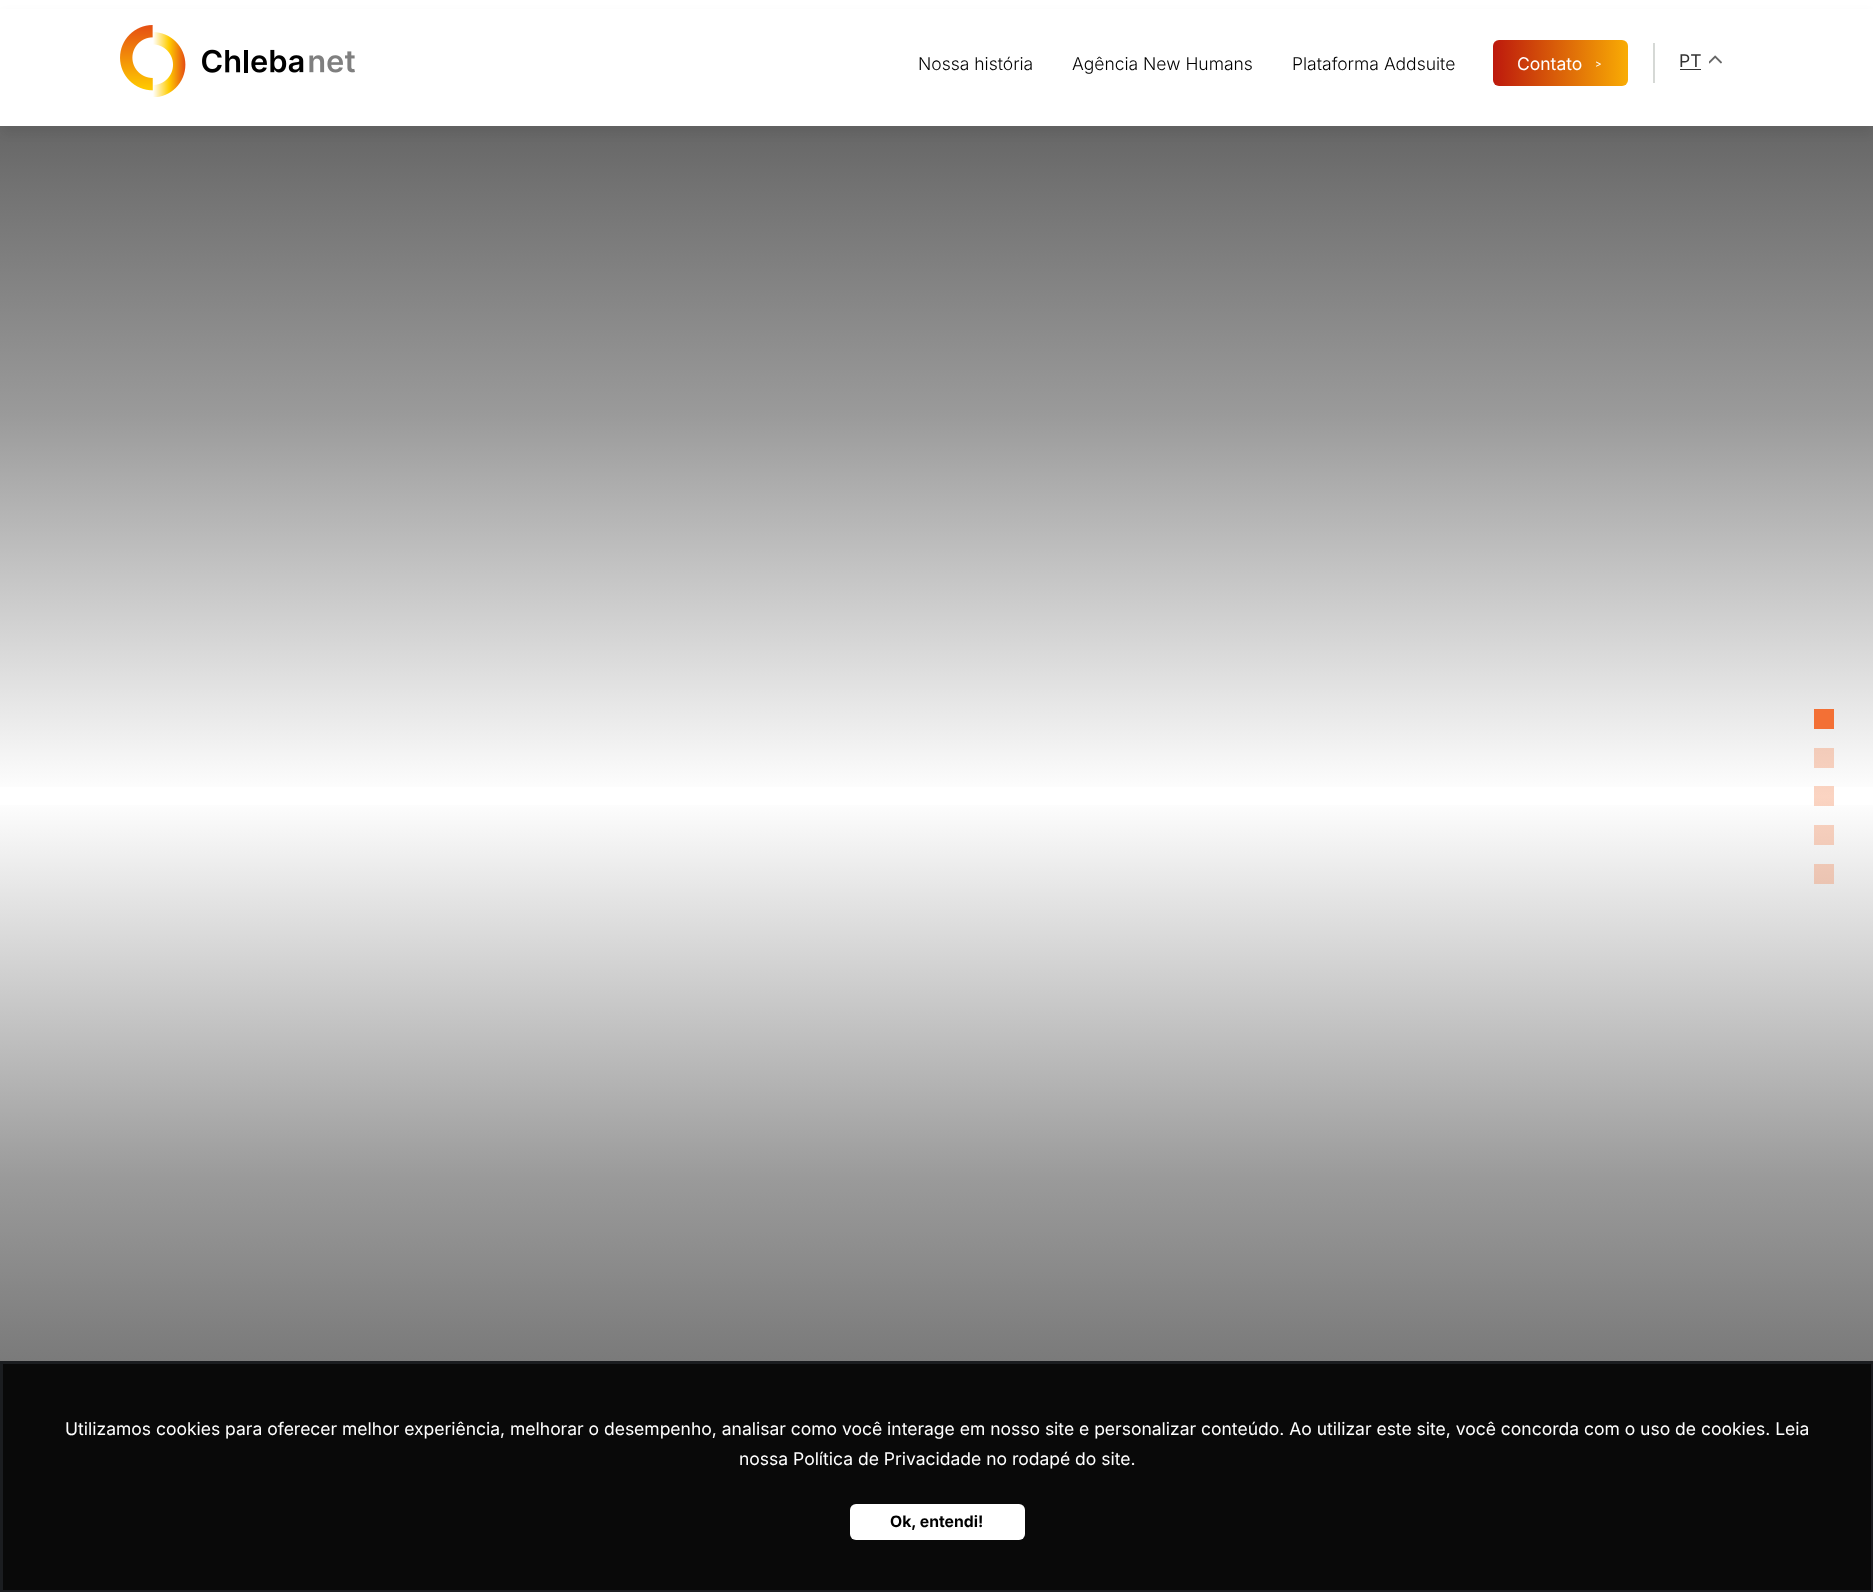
<svg xmlns="http://www.w3.org/2000/svg" width="1873" height="1592">
<style>
.a{font:300 17.5px Inter;fill:#000}
.b{font:17.5px Inter;fill:#fff}
.c{font:10px Inter;fill:#fff}
.d{font:17.5px Inter;fill:#333}
.e{font:bold 15.75px Inter;fill:#000}
</style>
<defs>
<linearGradient id="g1" gradientUnits="userSpaceOnUse" x1="937" y1="796" x2="937" y2="0"><stop offset="0" stop-color="#fff"/><stop offset="0.48" stop-color="#9a9a9a"/><stop offset="0.76" stop-color="#737373"/><stop offset="0.9" stop-color="#5d5d5d"/><stop offset="1" stop-color="#808080"/></linearGradient>
<linearGradient id="g2" gradientUnits="userSpaceOnUse" x1="1493" y1="63" x2="1628" y2="63"><stop offset="0" stop-color="#bd190d"/><stop offset="1" stop-color="#f9ac04"/></linearGradient>
<linearGradient id="g3" gradientUnits="userSpaceOnUse" x1="937" y1="796" x2="937" y2="0"><stop offset="0" stop-color="#fbd4c2"/><stop offset="0.48" stop-color="#b58d7c"/><stop offset="0.76" stop-color="#997260"/><stop offset="0.9" stop-color="#8a6351"/><stop offset="1" stop-color="#a37b6a"/></linearGradient>
<linearGradient id="g4" gradientUnits="userSpaceOnUse" x1="937" y1="796" x2="937" y2="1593"><stop offset="0" stop-color="#fff"/><stop offset="0.48" stop-color="#9a9a9a"/><stop offset="0.76" stop-color="#737373"/><stop offset="1" stop-color="#808080"/></linearGradient>
<linearGradient id="g5" gradientUnits="userSpaceOnUse" x1="937" y1="796" x2="937" y2="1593"><stop offset="0" stop-color="#fbd4c2"/><stop offset="0.48" stop-color="#b58d7c"/><stop offset="0.76" stop-color="#997260"/><stop offset="1" stop-color="#a37b6a"/></linearGradient>
</defs>
<rect width="100%" height="100%" fill="#fff"/>
<path fill="url(#g1)" d="M0 126h1873v661H0z"/>
<path fill="#0000000d" filter="blur(5px)" d="M3 13h1868v121H3z"/>
<path fill="#fff" d="M0 9h1873v117H0z"/>
<image href="1.png" x="120" y="25" width="235" height="72"/>
<rect fill="url(#g2)" x="1493" y="40" width="135" height="46" rx="6"/>
<path fill="none" stroke="#babfba" stroke-width="1.2" d="M1654 43v40"/>
<path fill="#333" d="M1680 69h21v1H1680z"/>
<image href="2.png" x="1709" y="55" width="13" height="9"/>
<path fill="url(#g3)" d="M1814 786h20v10H1814z"/>
<path fill="url(#g3)" d="M1814 748h20v20H1814z"/>
<path fill="url(#g4)" d="M0 805h1873v556H0z"/>
<path fill="url(#g5)" d="M1814 864h20v20H1814z"/>
<path fill="url(#g5)" d="M1814 825h20v20H1814z"/>
<path fill="url(#g5)" d="M1814 796h20v10H1814z"/>
<path fill="#f37035" d="M1814 709h20v20H1814z"/>
<path fill="#090909" stroke="#1b1d20" stroke-width="3" d="M1.5 1362.5h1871v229H1.5z"/>
<rect fill="#fff" x="850" y="1504" width="175" height="36" rx="6"/>
<text class="a" x="918" y="70">Nossa história</text>
<text class="a" x="1072" y="70">Agência New Humans</text>
<text class="a" x="1292" y="70">Plataforma Addsuite</text>
<text class="b" x="1517" y="70">Contato</text>
<text class="c" x="1595" y="67">&gt;</text>
<text class="d" x="1679" y="67">PT</text>
<text class="b" x="65" y="1435">Utilizamos cookies para oferecer melhor experiência, melhorar o desempenho, analisar como você interage em nosso site e personalizar conteúdo. Ao utilizar este site, você concorda com o uso de cookies. Leia</text>
<text class="b" x="739" y="1465">nossa Política de Privacidade no rodapé do site.</text>
<text class="e" x="890" y="1527">Ok, entendi!</text>
</svg>
